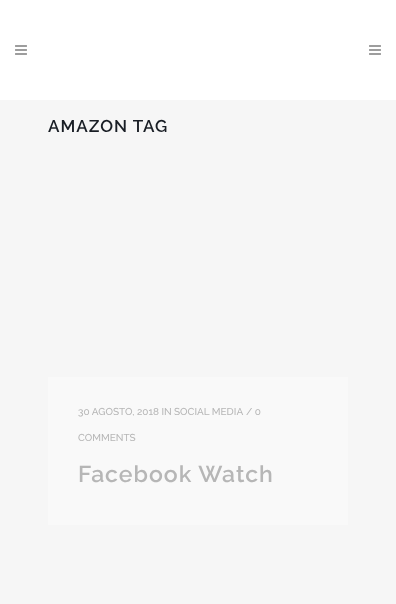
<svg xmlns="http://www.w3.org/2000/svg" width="396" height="604">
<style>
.a{font:600 17px Raleway;letter-spacing:1px;fill:#191e25}
.b{font:500 10px Raleway;fill:#b6b6b6}
.c{font:600 23px Raleway;letter-spacing:1px;fill:#b6b6b6}
</style>
<rect width="100%" height="100%" fill="#f6f6f6"/>
<path fill="#fff" d="M0 0h396v100H0z"/>
<image href="1.png" x="15" y="45" width="12" height="10"/>
<image href="1.png" x="369" y="45" width="12" height="10"/>
<path fill="#f9f9f9" d="M48 377h300v148H48z"/>
<text class="a" x="48" y="132">AMAZON TAG</text>
<text class="b" x="78" y="415">30 AGOSTO, 2018 IN</text>
<text class="b" x="174" y="415">SOCIAL MEDIA</text>
<text class="b" x="246" y="415">/ 0</text>
<text class="b" x="78" y="441">COMMENTS</text>
<text class="c" x="78" y="482">Facebook Watch</text>
</svg>
